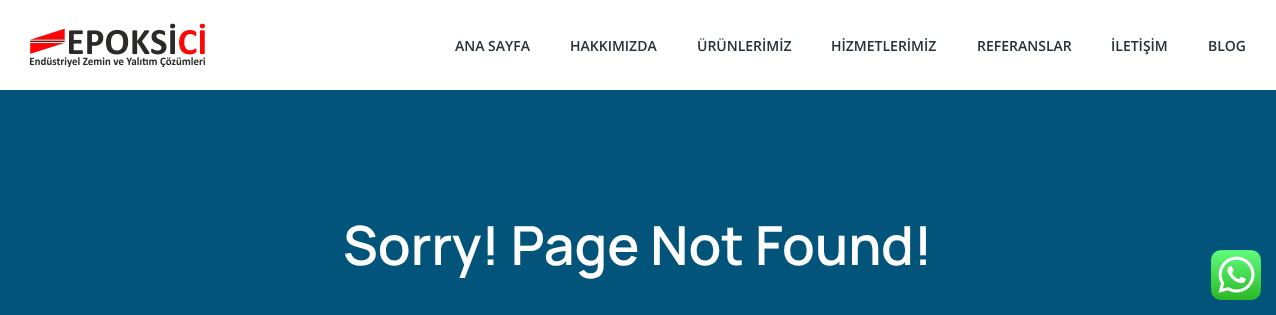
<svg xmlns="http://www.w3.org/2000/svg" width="1276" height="315">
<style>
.a{font:600 14px Open Sans;fill:#263238}
.b{font:600 54px Manrope;fill:#fff}
</style>
<rect width="100%" height="100%" fill="#fff"/>
<image href="1.png" x="30" y="23" width="175" height="44"/>
<path fill="#02547a" d="M0 90h1276v225H0z"/>
<image href="2.png" x="1211" y="250" width="50" height="50"/>
<text class="a" x="455" y="51">ANA SAYFA</text>
<text class="a" x="570" y="51">HAKKIMIZDA</text>
<text class="a" x="697" y="51">ÜRÜNLERİMİZ</text>
<text class="a" x="831" y="51">HİZMETLERİMİZ</text>
<text class="a" x="977" y="51">REFERANSLAR</text>
<text class="a" x="1111" y="51">İLETİŞİM</text>
<text class="a" x="1208" y="51">BLOG</text>
<text class="b" x="343" y="265">Sorry! Page Not Found!</text>
</svg>
